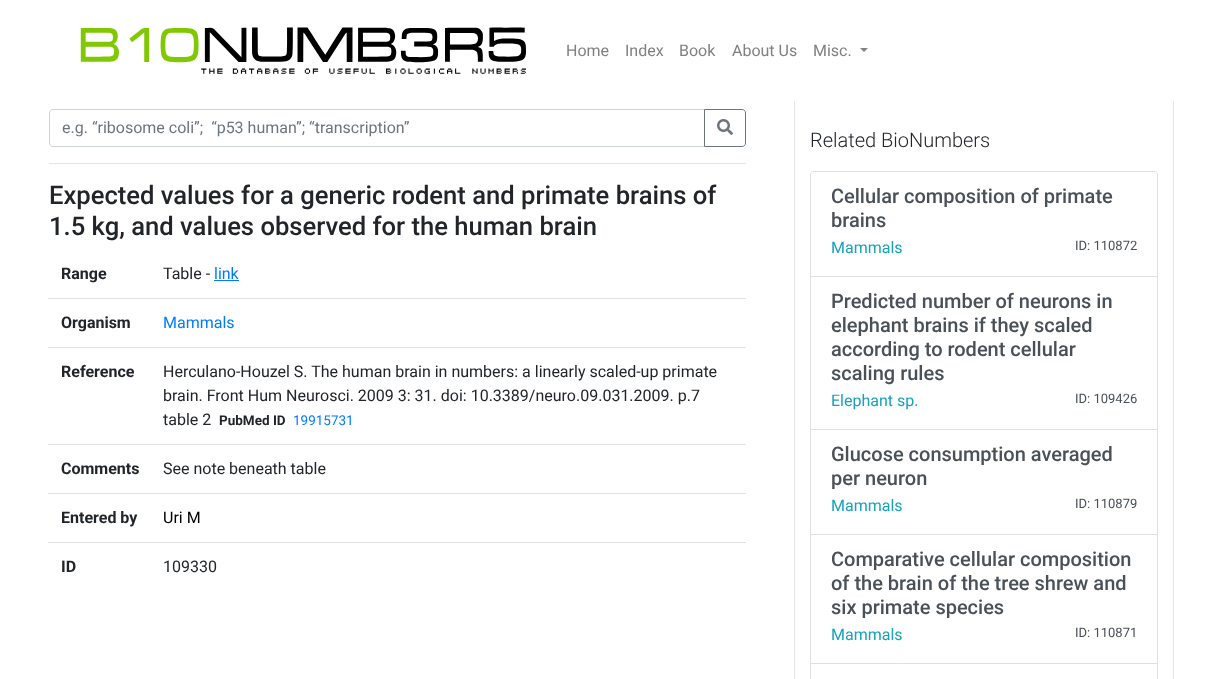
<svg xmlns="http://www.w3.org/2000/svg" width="1207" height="679">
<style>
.a{font:16px Roboto;fill:#808080}
.b{font:16px Roboto;fill:#6c757d}
.c{font:500 25.6px Roboto;fill:#212529}
.d{font:bold 16px Roboto;fill:#212529}
.e{font:16px Roboto;fill:#212529}
.f{font:16px Roboto;fill:#007bff}
.g{font:bold 13.5px Roboto;fill:#212529}
.h{font:13.5px Roboto;fill:#007bff}
.i{font:16px Roboto;fill:#000}
.j{font:300 20px Roboto;fill:#212529}
.k{font:500 20px Roboto;fill:#495057}
.l{font:16px Roboto;fill:#17a2b8}
.m{font:13px Roboto;fill:#495057}
</style>
<rect width="100%" height="100%" fill="#fff"/>
<image href="1.png" x="80" y="27" width="446" height="47"/>
<path fill="#808080" d="M860 48h8l-4 4z"/>
<path fill="none" stroke="#ced4da" d="M53 109.5h651.5v37h-651.5c-2 0-3.5-1.5-3.5-3.5v-30c0-2 1.5-3.5 3.5-3.5z"/>
<path fill="none" stroke="#6c757d" d="M704.5 109.5h37.5c2 0 3.5 1.5 3.5 3.5v30c0 2-1.5 3.5-3.5 3.5h-37.5z"/>
<image href="2.png" x="717" y="119" width="16" height="16"/>
<path fill="#e6e6e6" d="M49 163h697v1H49z"/>
<path fill="#007bff" d="M214 280h25v1H214z"/>
<path fill="#dee2e6" d="M48 298h698v1H48z"/>
<path fill="#dee2e6" d="M48 347h698v1H48z"/>
<path fill="#dee2e6" d="M48 444h698v1H48z"/>
<path fill="#dee2e6" d="M48 493h698v1H48z"/>
<path fill="#dee2e6" d="M48 542h698v1H48z"/>
<path fill="#e6e6e6" d="M1173 101h1v578H1173z"/>
<path fill="#e6e6e6" d="M794 101h1v578H794z"/>
<path fill="none" stroke="#dfdfdf" d="M814 171.5h340c2 0 3.5 1.5 3.5 3.5v101.5h-347v-101.5c0-2 1.5-3.5 3.5-3.5z"/>
<path fill="none" stroke="#dfdfdf" d="M810.5 276.5h347v153H810.5z"/>
<path fill="none" stroke="#dfdfdf" d="M810.5 429.5h347v105H810.5z"/>
<path fill="none" stroke="#dfdfdf" d="M810.5 534.5h347v129H810.5z"/>
<path fill="none" stroke="#dfdfdf" d="M810.5 663.5h347v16H810.5z"/>
<text class="a" x="566" y="56">Home</text>
<text class="a" x="625" y="56">Index</text>
<text class="a" x="679" y="56">Book</text>
<text class="a" x="732" y="56">About Us</text>
<text class="a" x="813" y="56">Misc.</text>
<text class="b" xml:space="preserve" x="62" y="133">e.g. “ribosome coli”;  “p53 human”; “transcription”</text>
<text class="c" x="49" y="204">Expected values for a generic rodent and primate brains of</text>
<text class="c" x="49" y="235">1.5 kg, and values observed for the human brain</text>
<text class="d" x="61" y="279">Range</text>
<text class="e" x="163" y="279">Table -</text>
<text class="f" x="214" y="279">link</text>
<text class="d" x="61" y="328">Organism</text>
<text class="f" x="163" y="328">Mammals</text>
<text class="d" x="61" y="377">Reference</text>
<text class="e" x="163" y="377">Herculano-Houzel S. The human brain in numbers: a linearly scaled-up primate</text>
<text class="e" x="163" y="401">brain. Front Hum Neurosci. 2009 3: 31. doi: 10.3389/neuro.09.031.2009. p.7</text>
<text class="e" x="163" y="425">table 2</text>
<text class="g" x="219" y="425">PubMed ID</text>
<text class="h" x="293" y="425">19915731</text>
<text class="d" x="61" y="474">Comments</text>
<text class="e" x="163" y="474">See note beneath table</text>
<text class="d" x="61" y="523">Entered by</text>
<text class="i" x="163" y="523">Uri M</text>
<text class="d" x="61" y="572">ID</text>
<text class="e" x="163" y="572">109330</text>
<text class="j" x="810" y="147">Related BioNumbers</text>
<text class="k" x="831" y="203">Cellular composition of primate</text>
<text class="k" x="831" y="227">brains</text>
<text class="l" x="831" y="253">Mammals</text>
<text class="m" x="1075" y="250">ID: 110872</text>
<text class="k" x="831" y="308">Predicted number of neurons in</text>
<text class="k" x="831" y="332">elephant brains if they scaled</text>
<text class="k" x="831" y="356">according to rodent cellular</text>
<text class="k" x="831" y="380">scaling rules</text>
<text class="l" x="831" y="406">Elephant sp.</text>
<text class="m" x="1075" y="403">ID: 109426</text>
<text class="k" x="831" y="461">Glucose consumption averaged</text>
<text class="k" x="831" y="485">per neuron</text>
<text class="l" x="831" y="511">Mammals</text>
<text class="m" x="1075" y="508">ID: 110879</text>
<text class="k" x="831" y="566">Comparative cellular composition</text>
<text class="k" x="831" y="590">of the brain of the tree shrew and</text>
<text class="k" x="831" y="614">six primate species</text>
<text class="l" x="831" y="640">Mammals</text>
<text class="m" x="1075" y="637">ID: 110871</text>
</svg>
